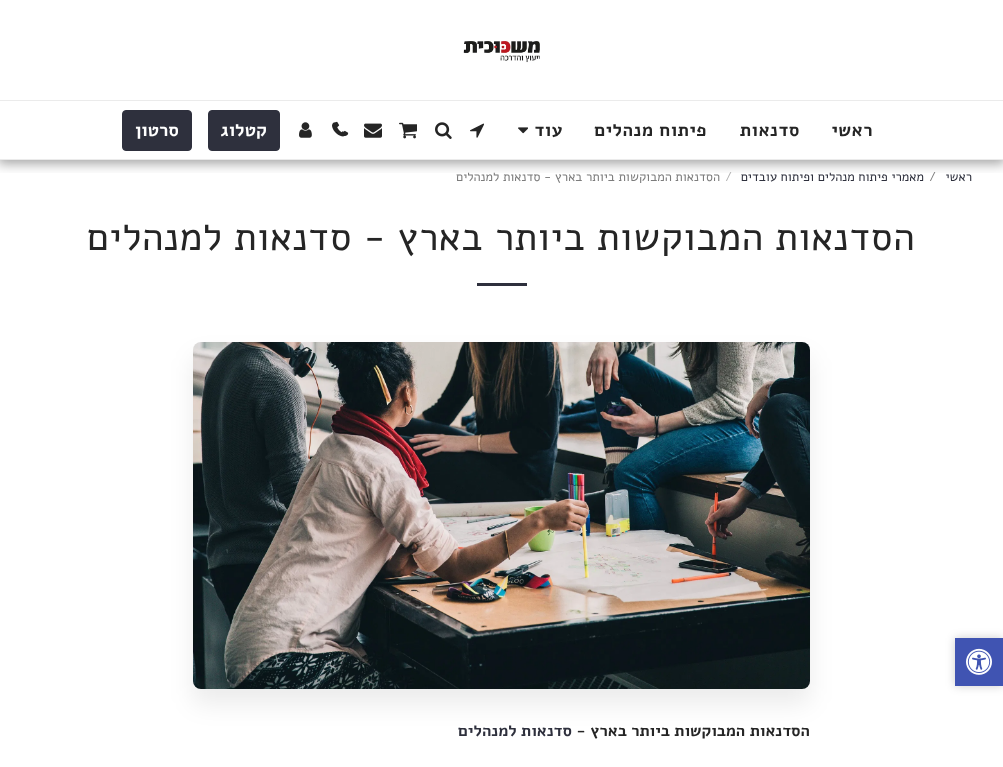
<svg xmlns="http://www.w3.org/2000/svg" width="1003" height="767">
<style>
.a{font:bold 18px Alef;letter-spacing:0.5px;direction:rtl;fill:#252525}
.b{font:bold 18px Alef;direction:rtl;fill:#fff}
.c{font:12.8px Alef;direction:rtl;fill:#2e303d}
.d{font:12.8px Alef;fill:#7c7c7c}
.e{font:12.8px Alef;fill:#b1b1b1}
.f{font:12.8px Alef;direction:rtl;fill:#7c7c7c}
.g{font:39.1px Alef;letter-spacing:0.5px;direction:rtl;fill:#252525}
.h{font:bold 16px Alef;direction:rtl;fill:#252525}
.i{font:bold 16px Alef;direction:rtl;fill:#2e303d}
</style>
<defs>
<clipPath id="clip1"><path d="M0 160h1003v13H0z"/></clipPath>
</defs>
<rect width="100%" height="100%" fill="#fff"/>
<g clip-path="url(#clip1)">
<path fill="#00000059" filter="blur(6px)" d="M-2 0h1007v164H-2z"/>
</g>
<path fill="#ebebeb" d="M0 159h1003v1H0z"/>
<image href="1.png" x="463" y="40" width="77" height="23"/>
<path fill="#ebebeb" d="M0 100h1003v1H0z"/>
<image href="2.png" x="518" y="127" width="10" height="7"/>
<image href="3.png" x="470" y="123" width="14" height="15"/>
<image href="4.png" x="435" y="122" width="17" height="17"/>
<image href="5.png" x="399" y="122" width="18" height="17"/>
<image href="6.png" x="364" y="123" width="18" height="15"/>
<image href="7.png" x="332" y="122" width="14" height="15"/>
<image href="8.png" x="335" y="121" width="14" height="15"/>
<image href="9.png" x="299" y="122" width="13" height="16"/>
<rect fill="#2e303d" stroke="#2e303d" x="208.5" y="110.5" width="71" height="40" rx="3.5"/>
<rect fill="#2e303d" stroke="#2e303d" x="122.5" y="110.5" width="69" height="40" rx="3.5"/>
<path fill="#2e303d" d="M477 283h50v3H477z"/>
<rect fill="#00000014" filter="blur(12.5px)" x="193" y="357" width="617" height="347" rx="8"/>
<image href="10.png" x="193" y="342" width="617" height="347"/>
<path fill="#00000033" filter="blur(5px)" d="M955 638h48v48H955z"/>
<path fill="#4054b2" d="M955 638h48v48H955z"/>
<image href="11.png" x="966" y="648" width="26" height="27"/>
<text class="a" x="873" y="136">ראשי</text>
<text class="a" x="800" y="136">סדנאות</text>
<text class="a" x="707" y="136">פיתוח מנהלים</text>
<text class="a" x="563" y="136">עוד</text>
<text class="b" x="267" y="136">קטלוג</text>
<text class="b" x="179" y="136">סרטון</text>
<text class="c" x="972" y="181">ראשי</text>
<text class="d" x="929" y="181">/</text>
<text class="c" x="924" y="181">מאמרי פיתוח מנהלים ופיתוח עובדים</text>
<text class="e" x="725" y="181">/</text>
<text class="f" x="720" y="181">הסדנאות המבוקשות ביותר בארץ - סדנאות למנהלים</text>
<text class="g" x="915" y="250">הסדנאות המבוקשות ביותר בארץ - סדנאות למנהלים</text>
<text class="h" x="810" y="736">הסדנאות המבוקשות ביותר בארץ -</text>
<text class="i" x="572" y="736">סדנאות למנהלים</text>
</svg>
